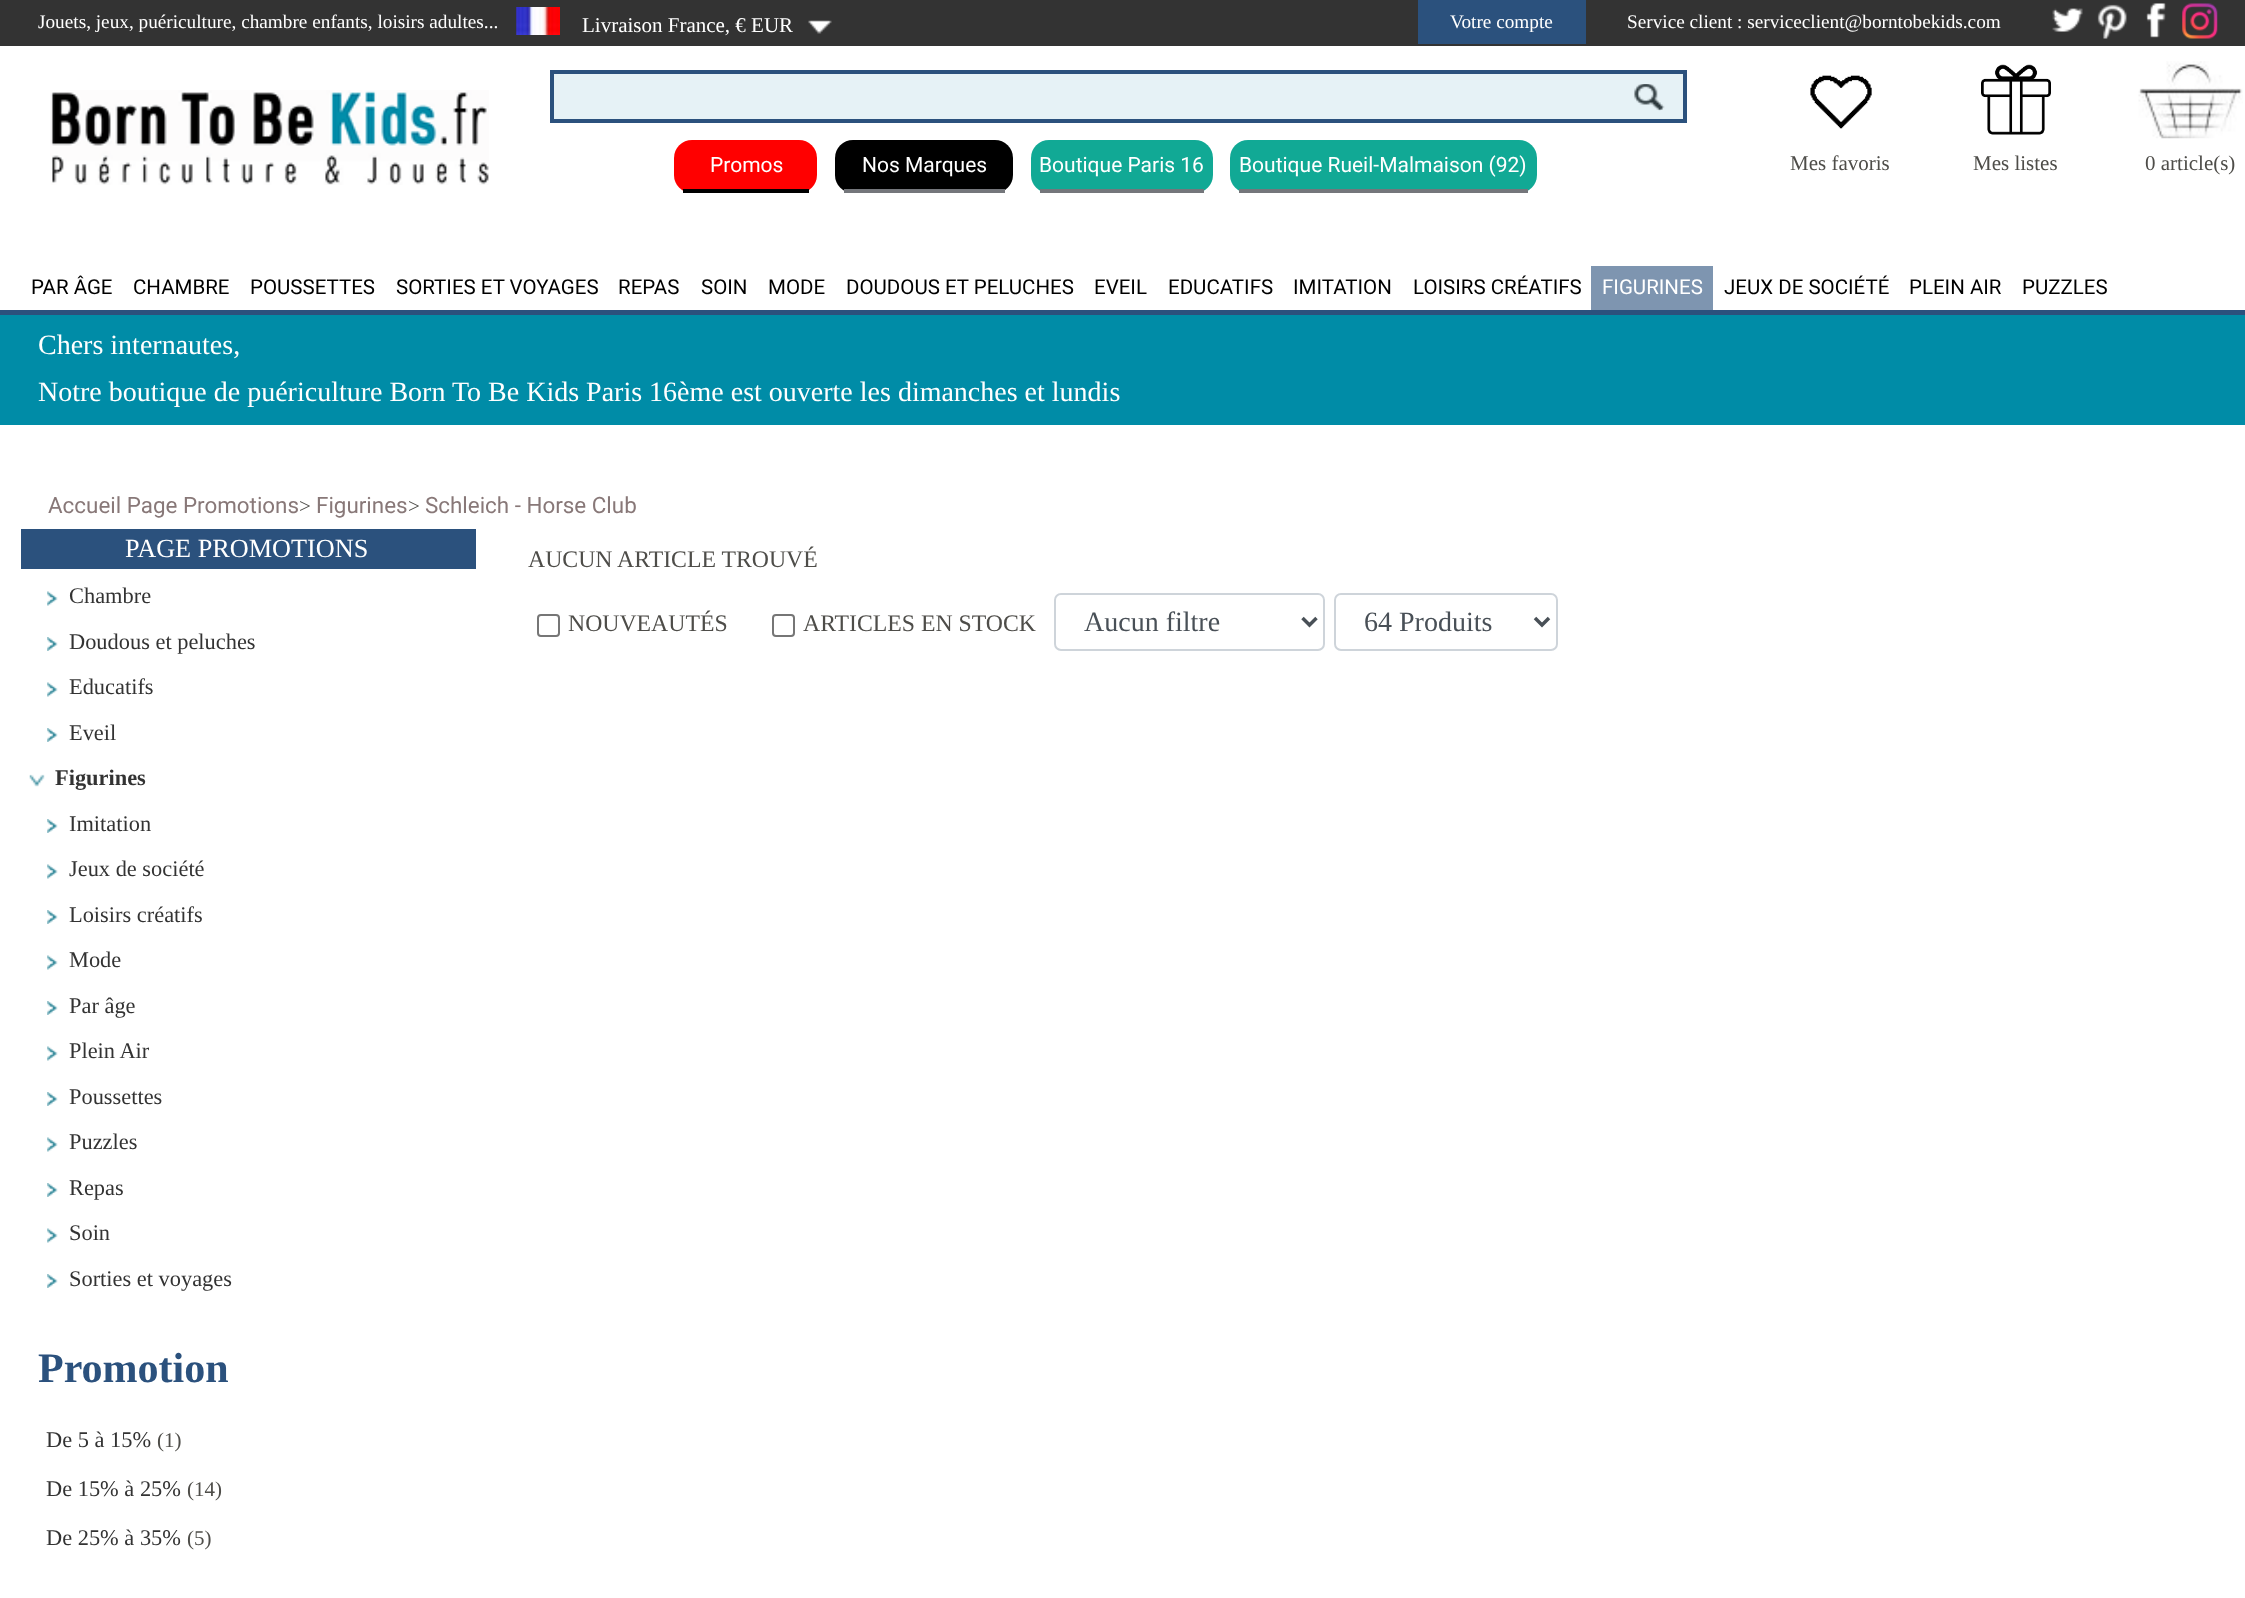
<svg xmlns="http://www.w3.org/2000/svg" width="2245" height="1598">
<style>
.a{font:19.25px Liberation Serif;fill:#fff}
.b{font:21px Liberation Serif;fill:#fff}
.c{font:21px Roboto;fill:#fff}
.d{font:21px Liberation Serif;fill:#4e4d49}
.e{font:20.5px Roboto;fill:#000}
.f{font:20.5px Roboto;fill:#fff}
.g{font:28px Liberation Serif;fill:#fff}
.h{font:22.4px Roboto;fill:#887878}
.i{font:26.25px Liberation Serif;fill:#fff}
.j{font:22.4px Liberation Serif;fill:#333}
.k{font:bold 22.4px Liberation Serif;fill:#333}
.l{font:bold 42px Liberation Serif;fill:#2b517d}
.m{font:23.75px Liberation Serif;fill:#4e4d49}
.n{font:28px Liberation Serif;fill:#495057}
</style>
<rect width="100%" height="100%" fill="#fff"/>
<path fill="#e6f2f6" d="M554 74h1129v45H554z"/>
<path fill="#333" d="M0 0h2245v46H0z"/>
<image href="1.png" x="516" y="7" width="44" height="28"/>
<image href="2.png" x="808" y="20" width="24" height="14"/>
<path fill="#2b517d" d="M1418 0h168v44H1418z"/>
<image href="3.png" x="2052" y="8" width="31" height="24"/>
<image href="4.png" x="2097" y="4" width="30" height="35"/>
<image href="5.png" x="2146" y="3" width="20" height="35"/>
<image href="6.png" x="2182" y="3" width="36" height="36"/>
<image href="7.png" x="50" y="90" width="439" height="95"/>
<image href="8.png" x="1634" y="84" width="31" height="27"/>
<path fill="none" stroke="#2b517d" stroke-width="4" d="M552 72h1133v49H552z"/>
<rect fill="#f00" x="674" y="140" width="143" height="53" rx="18"/>
<path fill="#000" d="M683 189h126v4H683z"/>
<rect fill="#000" x="835" y="140" width="178" height="53" rx="18"/>
<path fill="#74767b" d="M844 189h161v4H844z"/>
<rect fill="#11a995" x="1031" y="140" width="182" height="53" rx="18"/>
<path fill="#74767b" d="M1040 189h164v4H1040z"/>
<rect fill="#11a995" x="1230" y="140" width="307" height="53" rx="18"/>
<path fill="#74767b" d="M1239 189h289v4H1239z"/>
<image href="9.png" x="1810" y="75" width="62" height="54"/>
<image href="10.png" x="1981" y="64" width="70" height="71"/>
<image href="11.png" x="2138" y="61" width="105" height="78"/>
<path fill="#2b517d" d="M0 310h2245v5H0z"/>
<path fill="#7e95b0" d="M1591 266h122v44H1591z"/>
<path fill="#008ca7" d="M0 315h2245v110H0z"/>
<path fill="#2b517d" d="M21 529h455v40H21z"/>
<image href="12.png" x="47" y="591" width="11" height="15"/>
<image href="13.png" x="47" y="637" width="11" height="14"/>
<image href="14.png" x="47" y="682" width="11" height="15"/>
<image href="13.png" x="47" y="728" width="11" height="14"/>
<image href="15.png" x="29" y="774" width="16" height="13"/>
<image href="13.png" x="47" y="819" width="11" height="14"/>
<image href="12.png" x="47" y="864" width="11" height="15"/>
<image href="13.png" x="47" y="910" width="11" height="14"/>
<image href="12.png" x="47" y="955" width="11" height="15"/>
<image href="13.png" x="47" y="1001" width="11" height="14"/>
<image href="12.png" x="47" y="1046" width="11" height="15"/>
<image href="13.png" x="47" y="1092" width="11" height="14"/>
<image href="12.png" x="47" y="1137" width="11" height="15"/>
<image href="13.png" x="47" y="1183" width="11" height="14"/>
<image href="12.png" x="47" y="1228" width="11" height="15"/>
<image href="13.png" x="47" y="1274" width="11" height="14"/>
<rect fill="none" stroke="#767676" stroke-width="2" x="538" y="615" width="21" height="21" rx="3"/>
<rect fill="none" stroke="#767676" stroke-width="2" x="773" y="615" width="21" height="21" rx="3"/>
<rect fill="none" stroke="#ced4da" stroke-width="2" x="1055" y="594" width="269" height="56" rx="6"/>
<path fill="none" stroke="#495057" stroke-width="3.5" d="M1302.5 618l7 7l7-7"/>
<rect fill="none" stroke="#ced4da" stroke-width="2" x="1335" y="594" width="222" height="56" rx="6"/>
<path fill="none" stroke="#495057" stroke-width="3.5" d="M1535 618l7 7l7-7"/>
<text class="a" x="38" y="28">Jouets, jeux, puériculture, chambre enfants, loisirs adultes...</text>
<text class="b" x="582" y="32">Livraison France, € EUR</text>
<text class="a" x="1450" y="28">Votre compte</text>
<text class="a" x="1627" y="28">Service client : serviceclient@borntobekids.com</text>
<text class="c" x="710" y="172">Promos</text>
<text class="c" x="862" y="172">Nos Marques</text>
<text class="c" x="1039" y="172">Boutique Paris 16</text>
<text class="c" x="1239" y="172">Boutique Rueil-Malmaison (92)</text>
<text class="d" x="1790" y="170">Mes favoris</text>
<text class="d" x="1973" y="170">Mes listes</text>
<text class="d" x="2145" y="170">0 article(s)</text>
<text class="e" x="31" y="294">PAR ÂGE</text>
<text class="e" x="133" y="294">CHAMBRE</text>
<text class="e" x="250" y="294">POUSSETTES</text>
<text class="e" x="396" y="294">SORTIES ET VOYAGES</text>
<text class="e" x="618" y="294">REPAS</text>
<text class="e" x="701" y="294">SOIN</text>
<text class="e" x="768" y="294">MODE</text>
<text class="e" x="846" y="294">DOUDOUS ET PELUCHES</text>
<text class="e" x="1094" y="294">EVEIL</text>
<text class="e" x="1168" y="294">EDUCATIFS</text>
<text class="e" x="1293" y="294">IMITATION</text>
<text class="e" x="1413" y="294">LOISIRS CRÉATIFS</text>
<text class="f" x="1602" y="294">FIGURINES</text>
<text class="e" x="1724" y="294">JEUX DE SOCIÉTÉ</text>
<text class="e" x="1909" y="294">PLEIN AIR</text>
<text class="e" x="2022" y="294">PUZZLES</text>
<text class="g" x="38" y="354">Chers internautes,</text>
<text class="g" x="38" y="401">Notre boutique de puériculture Born To Be Kids Paris 16ème est ouverte les dimanches et lundis</text>
<text class="h" x="48" y="513">Accueil Page Promotions</text>
<text class="d" x="299" y="513">&gt;</text>
<text class="h" x="316" y="513">Figurines</text>
<text class="d" x="408" y="513">&gt;</text>
<text class="h" x="425" y="513">Schleich - Horse Club</text>
<text class="i" x="125" y="557">PAGE PROMOTIONS</text>
<text class="j" x="69" y="603">Chambre</text>
<text class="j" x="69" y="649">Doudous et peluches</text>
<text class="j" x="69" y="694">Educatifs</text>
<text class="j" x="69" y="740">Eveil</text>
<text class="k" x="55" y="785">Figurines</text>
<text class="j" x="69" y="831">Imitation</text>
<text class="j" x="69" y="876">Jeux de société</text>
<text class="j" x="69" y="922">Loisirs créatifs</text>
<text class="j" x="69" y="967">Mode</text>
<text class="j" x="69" y="1013">Par âge</text>
<text class="j" x="69" y="1058">Plein Air</text>
<text class="j" x="69" y="1104">Poussettes</text>
<text class="j" x="69" y="1149">Puzzles</text>
<text class="j" x="69" y="1195">Repas</text>
<text class="j" x="69" y="1240">Soin</text>
<text class="j" x="69" y="1286">Sorties et voyages</text>
<text class="l" x="38" y="1382">Promotion</text>
<text class="j" x="46" y="1447">De 5 à 15%</text>
<text class="d" x="157" y="1447">(1)</text>
<text class="j" x="46" y="1496">De 15% à 25%</text>
<text class="d" x="187" y="1496">(14)</text>
<text class="j" x="46" y="1545">De 25% à 35%</text>
<text class="d" x="187" y="1545">(5)</text>
<text class="m" x="528" y="567">AUCUN ARTICLE TROUVÉ</text>
<text class="m" x="568" y="631">NOUVEAUTÉS</text>
<text class="m" x="803" y="631">ARTICLES EN STOCK</text>
<text class="n" x="1084" y="631">Aucun filtre</text>
<text class="n" x="1364" y="631">64 Produits</text>
</svg>
